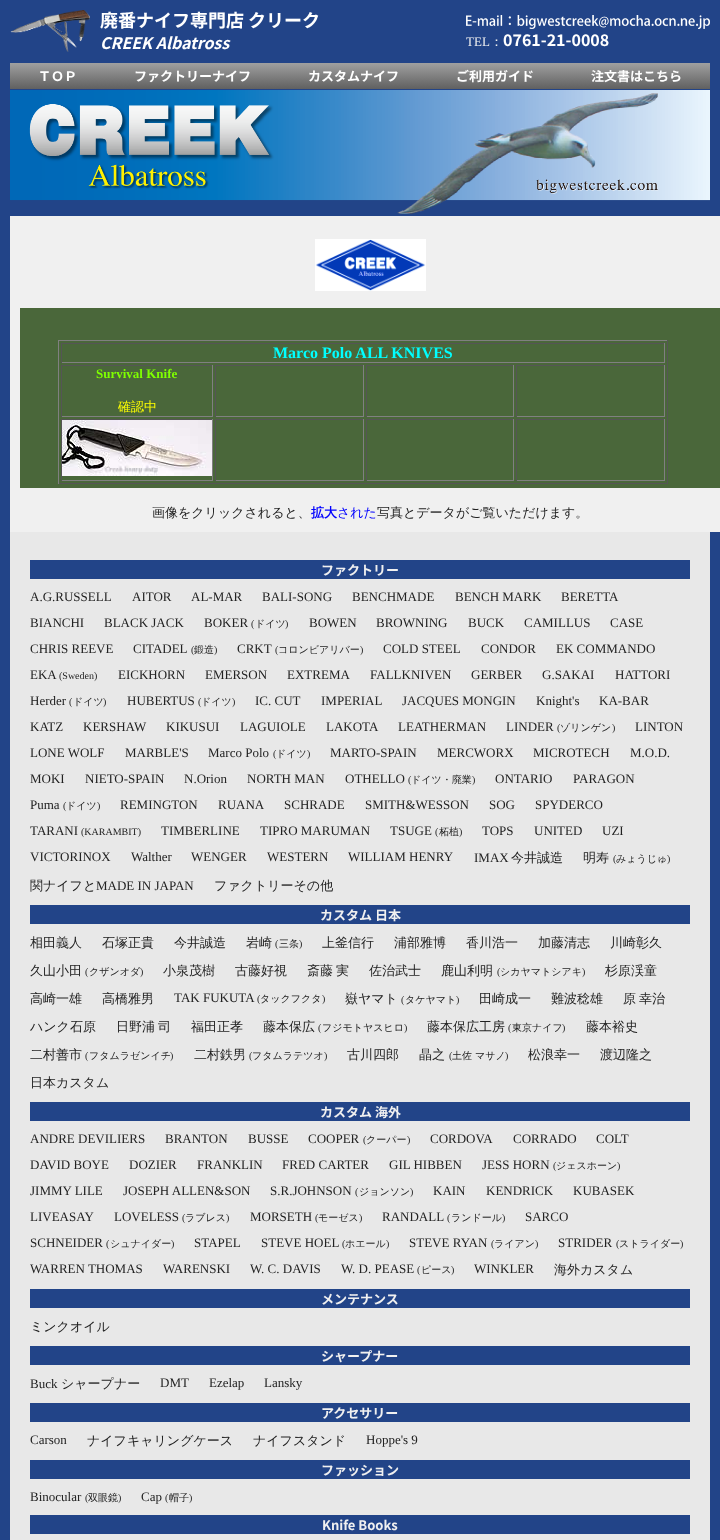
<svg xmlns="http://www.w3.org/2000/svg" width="720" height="1540">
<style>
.a{font:bold 18px Noto Sans JP;fill:#fff}
.b{font:italic bold 16px Noto Sans JP;fill:#fff}
.c{font:13px Liberation Serif;fill:#f0f0f0}
.d{font:500 13px WenQuanYi Zen Hei;fill:#f0f0f0}
.e{font:bold 16px Noto Sans JP;fill:#fff}
.f{font:bold 13px Noto Sans JP;fill:#fff}
.g{font:bold 16px Liberation Serif;fill:#0ff}
.h{font:bold 13px Liberation Serif;fill:#7fff00}
.i{font:500 13px WenQuanYi Zen Hei;fill:#ff0}
.j{font:500 13px WenQuanYi Zen Hei;fill:#222}
.k{font:bold 13px WenQuanYi Zen Hei;fill:#00f}
.l{font:500 13px WenQuanYi Zen Hei;fill:#00f}
.m{font:bold 13px Noto Sans JP;fill:#f0f0f0}
.n{font:13px Liberation Serif;fill:#222}
.o{font:10px Liberation Serif;fill:#222}
.p{font:500 10px WenQuanYi Zen Hei;fill:#222}
</style>
<defs>
<linearGradient id="g1" gradientUnits="userSpaceOnUse" x1="360" y1="89" x2="360" y2="63"><stop offset="0" stop-color="#606060"/><stop offset="1" stop-color="#a0a0a0"/></linearGradient>
</defs>
<rect width="100%" height="100%" fill="#248"/>
<image href="1.png" x="10" y="10" width="80" height="42"/>
<image href="2.png" x="466" y="15" width="244" height="14"/>
<path fill="url(#g1)" d="M10 63h700v26H10z"/>
<image href="3.png" x="10" y="90" width="700" height="124"/>
<path fill="#f0f0f0" d="M10 216h710v316H10z"/>
<image href="4.png" x="315" y="239" width="111" height="52"/>
<path fill="#4a673a" d="M20 308h700v180H20z"/>
<path fill="#808080" d="M58 340h610v1H58z"/>
<path fill="#555" d="M667 340h1v144H667z"/>
<path fill="#555" d="M58 483h610v1H58z"/>
<path fill="#808080" d="M58 340h1v144H58z"/>
<path fill="#555" d="M61 343h604v1H61z"/>
<path fill="#808080" d="M664 343h1v20H664z"/>
<path fill="#808080" d="M61 362h604v1H61z"/>
<path fill="#555" d="M61 343h1v20H61z"/>
<path fill="#555" d="M61 365h152v1H61z"/>
<path fill="#808080" d="M212 365h1v52H212z"/>
<path fill="#808080" d="M61 416h152v1H61z"/>
<path fill="#555" d="M61 365h1v52H61z"/>
<path fill="#555" d="M215 365h149v1H215z"/>
<path fill="#808080" d="M363 365h1v52H363z"/>
<path fill="#808080" d="M215 416h149v1H215z"/>
<path fill="#555" d="M215 365h1v52H215z"/>
<path fill="#555" d="M366 365h148v1H366z"/>
<path fill="#808080" d="M513 365h1v52H513z"/>
<path fill="#808080" d="M366 416h148v1H366z"/>
<path fill="#555" d="M366 365h1v52H366z"/>
<path fill="#555" d="M516 365h149v1H516z"/>
<path fill="#808080" d="M664 365h1v52H664z"/>
<path fill="#808080" d="M516 416h149v1H516z"/>
<path fill="#555" d="M516 365h1v52H516z"/>
<path fill="#555" d="M61 419h152v1H61z"/>
<path fill="#808080" d="M212 419h1v62H212z"/>
<path fill="#808080" d="M61 480h152v1H61z"/>
<path fill="#555" d="M61 419h1v62H61z"/>
<image href="5.png" x="62" y="420" width="150" height="56"/>
<path fill="#555" d="M215 419h149v1H215z"/>
<path fill="#808080" d="M363 419h1v62H363z"/>
<path fill="#808080" d="M215 480h149v1H215z"/>
<path fill="#555" d="M215 419h1v62H215z"/>
<path fill="#555" d="M366 419h148v1H366z"/>
<path fill="#808080" d="M513 419h1v62H513z"/>
<path fill="#808080" d="M366 480h148v1H366z"/>
<path fill="#555" d="M366 419h1v62H366z"/>
<path fill="#555" d="M516 419h149v1H516z"/>
<path fill="#808080" d="M664 419h1v62H664z"/>
<path fill="#808080" d="M516 480h149v1H516z"/>
<path fill="#555" d="M516 419h1v62H516z"/>
<path fill="#e8e8e8" d="M10 532h700v1008H10z"/>
<path fill="#248" d="M30 560h660v19H30z"/>
<path fill="#248" d="M30 905h660v19H30z"/>
<path fill="#248" d="M30 1102h660v19H30z"/>
<path fill="#248" d="M30 1289h660v19H30z"/>
<path fill="#248" d="M30 1346h660v19H30z"/>
<path fill="#248" d="M30 1403h660v19H30z"/>
<path fill="#248" d="M30 1460h660v19H30z"/>
<path fill="#248" d="M30 1515h660v19H30z"/>
<text class="a" x="100" y="27">廃番ナイフ専門店 クリーク</text>
<text class="b" x="100" y="49">CREEK Albatross</text>
<text class="c" x="466" y="46">TEL</text>
<text class="d" x="490" y="46">：</text>
<text class="e" x="503" y="46">0761-21-0008</text>
<text class="f" x="38" y="81">ＴＯＰ</text>
<text class="f" x="134" y="81">ファクトリーナイフ</text>
<text class="f" x="308" y="81">カスタムナイフ</text>
<text class="f" x="456" y="81">ご利用ガイド</text>
<text class="f" x="591" y="81">注文書はこちら</text>
<text class="g" x="273" y="358">Marco Polo ALL KNIVES</text>
<text class="h" x="96" y="378">Survival Knife</text>
<text class="i" x="118" y="411">確認中</text>
<text class="j" x="152" y="517">画像をクリックされると、</text>
<text class="k" x="311" y="517">拡大</text>
<text class="l" x="337" y="517">された</text>
<text class="j" x="377" y="517">写真とデータがご覧いただけます。</text>
<text class="m" x="321" y="575">ファクトリー</text>
<text class="n" x="30" y="601">A.G.RUSSELL</text>
<text class="n" x="132" y="601">AITOR</text>
<text class="n" x="191" y="601">AL-MAR</text>
<text class="n" x="262" y="601">BALI-SONG</text>
<text class="n" x="352" y="601">BENCHMADE</text>
<text class="n" x="455" y="601">BENCH MARK</text>
<text class="n" x="561" y="601">BERETTA</text>
<text class="n" x="30" y="627">BIANCHI</text>
<text class="n" x="104" y="627">BLACK JACK</text>
<text class="n" x="204" y="627">BOKER</text>
<text class="o" x="251" y="627">(</text>
<text class="p" x="255" y="627">ドイツ</text>
<text class="o" x="285" y="627">)</text>
<text class="n" x="309" y="627">BOWEN</text>
<text class="n" x="376" y="627">BROWNING</text>
<text class="n" x="468" y="627">BUCK</text>
<text class="n" x="524" y="627">CAMILLUS</text>
<text class="n" x="610" y="627">CASE</text>
<text class="n" x="30" y="653">CHRIS REEVE</text>
<text class="n" x="133" y="653">CITADEL</text>
<text class="o" x="191" y="653">(</text>
<text class="p" x="194" y="653">鍛造</text>
<text class="o" x="214" y="653">)</text>
<text class="n" x="237" y="653">CRKT</text>
<text class="o" x="275" y="653">(</text>
<text class="p" x="278" y="653">コロンビアリバー</text>
<text class="o" x="360" y="653">)</text>
<text class="n" x="383" y="653">COLD STEEL</text>
<text class="n" x="481" y="653">CONDOR</text>
<text class="n" x="556" y="653">EK COMMANDO</text>
<text class="n" x="30" y="679">EKA</text>
<text class="o" x="59" y="679">(Sweden)</text>
<text class="n" x="118" y="679">EICKHORN</text>
<text class="n" x="205" y="679">EMERSON</text>
<text class="n" x="287" y="679">EXTREMA</text>
<text class="n" x="370" y="679">FALLKNIVEN</text>
<text class="n" x="471" y="679">GERBER</text>
<text class="n" x="542" y="679">G.SAKAI</text>
<text class="n" x="615" y="679">HATTORI</text>
<text class="n" x="30" y="705">Herder</text>
<text class="o" x="69" y="705">(</text>
<text class="p" x="73" y="705">ドイツ</text>
<text class="o" x="103" y="705">)</text>
<text class="n" x="127" y="705">HUBERTUS</text>
<text class="o" x="198" y="705">(</text>
<text class="p" x="201" y="705">ドイツ</text>
<text class="o" x="232" y="705">)</text>
<text class="n" x="255" y="705">IC. CUT</text>
<text class="n" x="321" y="705">IMPERIAL</text>
<text class="n" x="402" y="705">JACQUES MONGIN</text>
<text class="n" x="536" y="705">Knight's</text>
<text class="n" x="599" y="705">KA-BAR</text>
<text class="n" x="30" y="731">KATZ</text>
<text class="n" x="83" y="731">KERSHAW</text>
<text class="n" x="166" y="731">KIKUSUI</text>
<text class="n" x="240" y="731">LAGUIOLE</text>
<text class="n" x="326" y="731">LAKOTA</text>
<text class="n" x="398" y="731">LEATHERMAN</text>
<text class="n" x="506" y="731">LINDER</text>
<text class="o" x="557" y="731">(</text>
<text class="p" x="560" y="731">ゾリンゲン</text>
<text class="o" x="612" y="731">)</text>
<text class="n" x="635" y="731">LINTON</text>
<text class="n" x="30" y="757">LONE WOLF</text>
<text class="n" x="125" y="757">MARBLE'S</text>
<text class="n" x="208" y="757">Marco Polo</text>
<text class="o" x="273" y="757">(</text>
<text class="p" x="276" y="757">ドイツ</text>
<text class="o" x="307" y="757">)</text>
<text class="n" x="330" y="757">MARTO-SPAIN</text>
<text class="n" x="437" y="757">MERCWORX</text>
<text class="n" x="533" y="757">MICROTECH</text>
<text class="n" x="630" y="757">M.O.D.</text>
<text class="n" x="30" y="783">MOKI</text>
<text class="n" x="85" y="783">NIETO-SPAIN</text>
<text class="n" x="184" y="783">N.Orion</text>
<text class="n" x="247" y="783">NORTH MAN</text>
<text class="n" x="345" y="783">OTHELLO</text>
<text class="o" x="408" y="783">(</text>
<text class="p" x="411" y="783">ドイツ・廃業</text>
<text class="o" x="472" y="783">)</text>
<text class="n" x="495" y="783">ONTARIO</text>
<text class="n" x="573" y="783">PARAGON</text>
<text class="n" x="30" y="809">Puma</text>
<text class="o" x="63" y="809">(</text>
<text class="p" x="66" y="809">ドイツ</text>
<text class="o" x="97" y="809">)</text>
<text class="n" x="120" y="809">REMINGTON</text>
<text class="n" x="218" y="809">RUANA</text>
<text class="n" x="284" y="809">SCHRADE</text>
<text class="n" x="365" y="809">SMITH&amp;WESSON</text>
<text class="n" x="489" y="809">SOG</text>
<text class="n" x="535" y="809">SPYDERCO</text>
<text class="n" x="30" y="835">TARANI</text>
<text class="o" x="81" y="835">(KARAMBIT)</text>
<text class="n" x="161" y="835">TIMBERLINE</text>
<text class="n" x="260" y="835">TIPRO MARUMAN</text>
<text class="n" x="390" y="835">TSUGE</text>
<text class="o" x="435" y="835">(</text>
<text class="p" x="439" y="835">柘植</text>
<text class="o" x="459" y="835">)</text>
<text class="n" x="482" y="835">TOPS</text>
<text class="n" x="534" y="835">UNITED</text>
<text class="n" x="602" y="835">UZI</text>
<text class="n" x="30" y="861">VICTORINOX</text>
<text class="n" x="131" y="861">Walther</text>
<text class="n" x="191" y="861">WENGER</text>
<text class="n" x="267" y="861">WESTERN</text>
<text class="n" x="348" y="861">WILLIAM HENRY</text>
<text class="n" x="474" y="862">IMAX</text>
<text class="j" x="511" y="862">今井誠造</text>
<text class="j" x="583" y="862">明寿</text>
<text class="o" x="613" y="862">(</text>
<text class="p" x="616" y="862">みょうじゅ</text>
<text class="o" x="667" y="862">)</text>
<text class="j" x="30" y="890">関ナイフと</text>
<text class="n" x="96" y="890">MADE IN JAPAN</text>
<text class="j" x="214" y="890">ファクトリーその他</text>
<text class="m" x="320" y="920">カスタム 日本</text>
<text class="j" x="30" y="947">相田義人</text>
<text class="j" x="102" y="947">石塚正貴</text>
<text class="j" x="174" y="947">今井誠造</text>
<text class="j" x="246" y="947">岩崎</text>
<text class="o" x="275" y="947">(</text>
<text class="p" x="279" y="947">三条</text>
<text class="o" x="299" y="947">)</text>
<text class="j" x="322" y="947">上釜信行</text>
<text class="j" x="394" y="947">浦部雅博</text>
<text class="j" x="466" y="947">香川浩一</text>
<text class="j" x="538" y="947">加藤清志</text>
<text class="j" x="610" y="947">川崎彰久</text>
<text class="j" x="30" y="975">久山小田</text>
<text class="o" x="85" y="975">(</text>
<text class="p" x="89" y="975">クザンオダ</text>
<text class="o" x="140" y="975">)</text>
<text class="j" x="163" y="975">小泉茂樹</text>
<text class="j" x="235" y="975">古藤好視</text>
<text class="j" x="307" y="975" word-spacing="-1">斎藤 実</text>
<text class="j" x="369" y="975">佐治武士</text>
<text class="j" x="441" y="975">鹿山利明</text>
<text class="o" x="497" y="975">(</text>
<text class="p" x="500" y="975">シカヤマトシアキ</text>
<text class="o" x="582" y="975">)</text>
<text class="j" x="605" y="975">杉原渓童</text>
<text class="j" x="30" y="1003">高崎一雄</text>
<text class="j" x="102" y="1003">高橋雅男</text>
<text class="n" x="174" y="1002">TAK FUKUTA</text>
<text class="o" x="257" y="1002">(</text>
<text class="p" x="260" y="1002">タックフクタ</text>
<text class="o" x="322" y="1002">)</text>
<text class="j" x="345" y="1003">嶽ヤマト</text>
<text class="o" x="401" y="1003">(</text>
<text class="p" x="405" y="1003">タケヤマト</text>
<text class="o" x="456" y="1003">)</text>
<text class="j" x="479" y="1003">田崎成一</text>
<text class="j" x="551" y="1003">難波稔雄</text>
<text class="j" x="623" y="1003" word-spacing="-1">原 幸治</text>
<text class="j" x="30" y="1031">ハンク石原</text>
<text class="j" x="116" y="1031" word-spacing="-1">日野浦 司</text>
<text class="j" x="191" y="1031">福田正孝</text>
<text class="j" x="263" y="1031">藤本保広</text>
<text class="o" x="318" y="1031">(</text>
<text class="p" x="322" y="1031">フジモトヤスヒロ</text>
<text class="o" x="404" y="1031">)</text>
<text class="j" x="427" y="1031">藤本保広工房</text>
<text class="o" x="508" y="1031">(</text>
<text class="p" x="512" y="1031">東京ナイフ</text>
<text class="o" x="562" y="1031">)</text>
<text class="j" x="586" y="1031">藤本裕史</text>
<text class="j" x="30" y="1059">二村善市</text>
<text class="o" x="85" y="1059">(</text>
<text class="p" x="89" y="1059">フタムラゼンイチ</text>
<text class="o" x="170" y="1059">)</text>
<text class="j" x="194" y="1059">二村鉄男</text>
<text class="o" x="249" y="1059">(</text>
<text class="p" x="252" y="1059">フタムラテツオ</text>
<text class="o" x="324" y="1059">)</text>
<text class="j" x="347" y="1059">古川四郎</text>
<text class="j" x="419" y="1059">晶之</text>
<text class="o" x="449" y="1059">(</text>
<text class="p" x="452" y="1059">土佐 マサノ</text>
<text class="o" x="505" y="1059">)</text>
<text class="j" x="528" y="1059">松浪幸一</text>
<text class="j" x="600" y="1059">渡辺隆之</text>
<text class="j" x="30" y="1087">日本カスタム</text>
<text class="m" x="320" y="1117">カスタム 海外</text>
<text class="n" x="30" y="1143">ANDRE DEVILIERS</text>
<text class="n" x="165" y="1143">BRANTON</text>
<text class="n" x="248" y="1143">BUSSE</text>
<text class="n" x="308" y="1143">COOPER</text>
<text class="o" x="363" y="1143">(</text>
<text class="p" x="366" y="1143">クーパー</text>
<text class="o" x="407" y="1143">)</text>
<text class="n" x="430" y="1143">CORDOVA</text>
<text class="n" x="513" y="1143">CORRADO</text>
<text class="n" x="596" y="1143">COLT</text>
<text class="n" x="30" y="1169">DAVID BOYE</text>
<text class="n" x="129" y="1169">DOZIER</text>
<text class="n" x="197" y="1169">FRANKLIN</text>
<text class="n" x="282" y="1169">FRED CARTER</text>
<text class="n" x="389" y="1169">GIL HIBBEN</text>
<text class="n" x="482" y="1169">JESS HORN</text>
<text class="o" x="553" y="1169">(</text>
<text class="p" x="556" y="1169">ジェスホーン</text>
<text class="o" x="617" y="1169">)</text>
<text class="n" x="30" y="1195">JIMMY LILE</text>
<text class="n" x="123" y="1195">JOSEPH ALLEN&amp;SON</text>
<text class="n" x="270" y="1195">S.R.JOHNSON</text>
<text class="o" x="355" y="1195">(</text>
<text class="p" x="359" y="1195">ジョンソン</text>
<text class="o" x="410" y="1195">)</text>
<text class="n" x="433" y="1195">KAIN</text>
<text class="n" x="486" y="1195">KENDRICK</text>
<text class="n" x="573" y="1195">KUBASEK</text>
<text class="n" x="30" y="1221">LIVEASAY</text>
<text class="n" x="114" y="1221">LOVELESS</text>
<text class="o" x="182" y="1221">(</text>
<text class="p" x="185" y="1221">ラブレス</text>
<text class="o" x="226" y="1221">)</text>
<text class="n" x="250" y="1221">MORSETH</text>
<text class="o" x="315" y="1221">(</text>
<text class="p" x="318" y="1221">モーゼス</text>
<text class="o" x="359" y="1221">)</text>
<text class="n" x="382" y="1221">RANDALL</text>
<text class="o" x="447" y="1221">(</text>
<text class="p" x="451" y="1221">ランドール</text>
<text class="o" x="502" y="1221">)</text>
<text class="n" x="525" y="1221">SARCO</text>
<text class="n" x="30" y="1247">SCHNEIDER</text>
<text class="o" x="106" y="1247">(</text>
<text class="p" x="110" y="1247">シュナイダー</text>
<text class="o" x="171" y="1247">)</text>
<text class="n" x="194" y="1247">STAPEL</text>
<text class="n" x="261" y="1247">STEVE HOEL</text>
<text class="o" x="342" y="1247">(</text>
<text class="p" x="345" y="1247">ホエール</text>
<text class="o" x="386" y="1247">)</text>
<text class="n" x="409" y="1247">STEVE RYAN</text>
<text class="o" x="491" y="1247">(</text>
<text class="p" x="494" y="1247">ライアン</text>
<text class="o" x="535" y="1247">)</text>
<text class="n" x="558" y="1247">STRIDER</text>
<text class="o" x="616" y="1247">(</text>
<text class="p" x="619" y="1247">ストライダー</text>
<text class="o" x="680" y="1247">)</text>
<text class="n" x="30" y="1273">WARREN THOMAS</text>
<text class="n" x="163" y="1273">WARENSKI</text>
<text class="n" x="250" y="1273">W. C. DAVIS</text>
<text class="n" x="341" y="1273">W. D. PEASE</text>
<text class="o" x="417" y="1273">(</text>
<text class="p" x="421" y="1273">ピース</text>
<text class="o" x="451" y="1273">)</text>
<text class="n" x="474" y="1273">WINKLER</text>
<text class="j" x="554" y="1274">海外カスタム</text>
<text class="m" x="321" y="1304">メンテナンス</text>
<text class="j" x="30" y="1331">ミンクオイル</text>
<text class="m" x="321" y="1361">シャープナー</text>
<text class="n" x="30" y="1388">Buck</text>
<text class="j" x="61" y="1388">シャープナー</text>
<text class="n" x="160" y="1387">DMT</text>
<text class="n" x="209" y="1387">Ezelap</text>
<text class="n" x="264" y="1387">Lansky</text>
<text class="m" x="321" y="1418">アクセサリー</text>
<text class="n" x="30" y="1444">Carson</text>
<text class="j" x="87" y="1445">ナイフキャリングケース</text>
<text class="j" x="253" y="1445">ナイフスタンド</text>
<text class="n" x="366" y="1444">Hoppe's 9</text>
<text class="m" x="321" y="1475">ファッション</text>
<text class="n" x="30" y="1501">Binocular</text>
<text class="o" x="85" y="1501">(</text>
<text class="p" x="88" y="1501">双眼鏡</text>
<text class="o" x="118" y="1501">)</text>
<text class="n" x="141" y="1501">Cap</text>
<text class="o" x="165" y="1501">(</text>
<text class="p" x="169" y="1501">帽子</text>
<text class="o" x="189" y="1501">)</text>
<text class="m" x="322" y="1530">Knife Books</text>
</svg>
